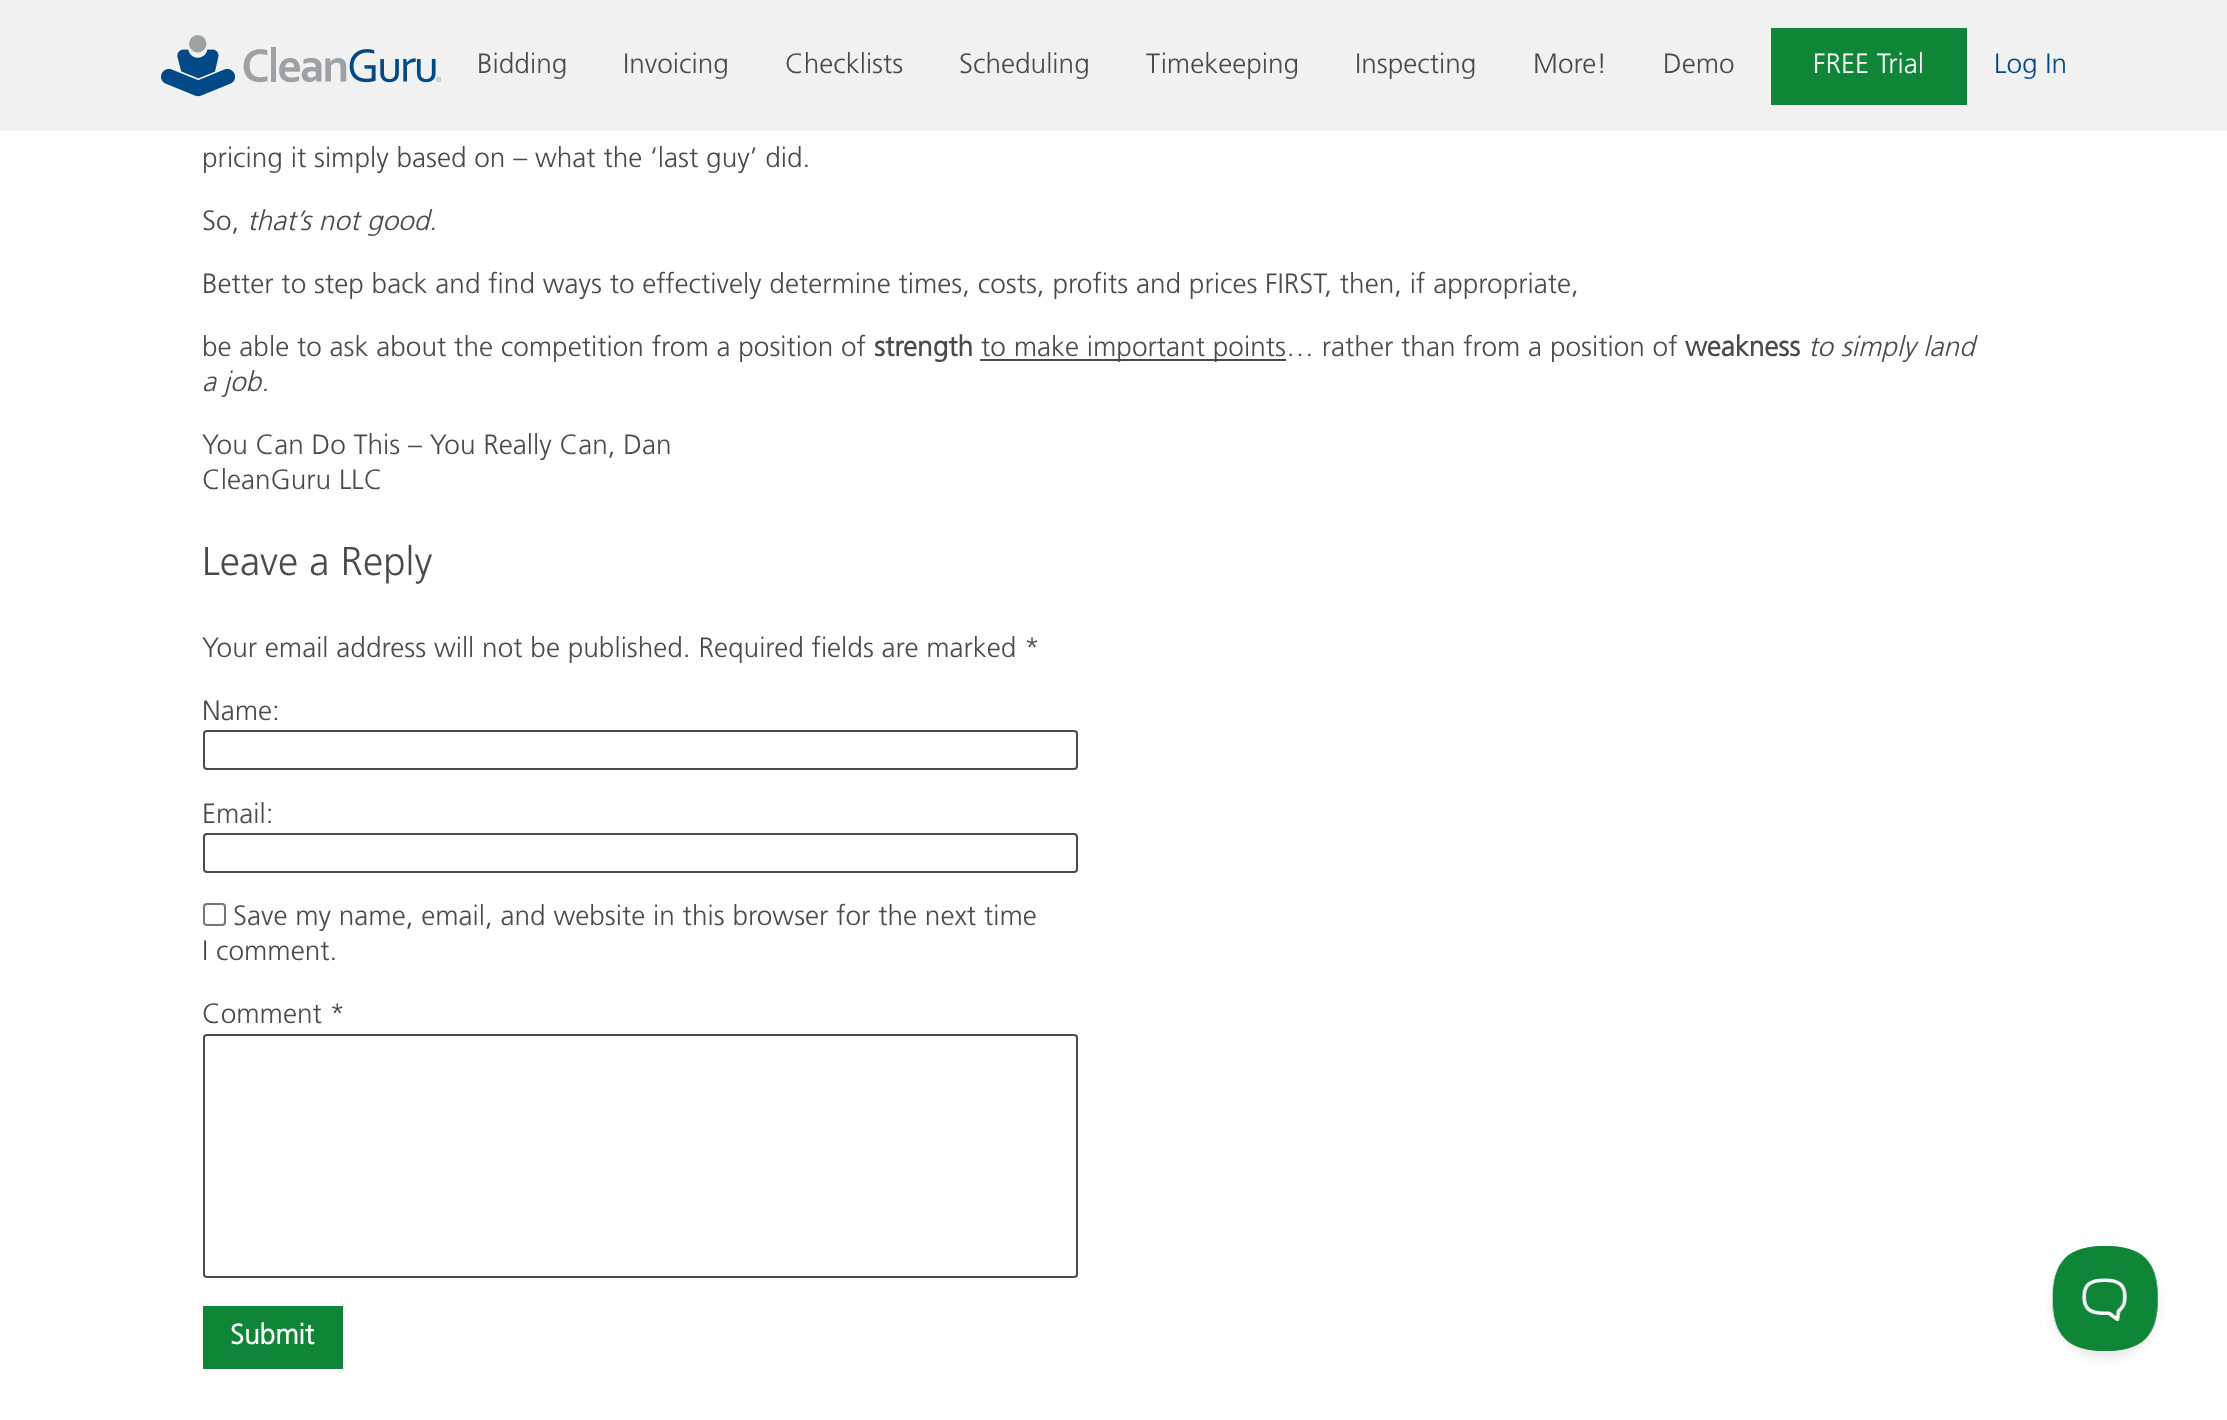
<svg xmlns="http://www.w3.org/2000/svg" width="2227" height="1420">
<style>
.a{font:300 28px Frutiger;fill:#484a4d}
.b{font:300 28px Frutiger;fill:#fff}
.c{font:300 28px Frutiger;fill:#004887}
.d{font:italic 300 28px Frutiger;fill:#484a4d}
.e{font:bold 28px Frutiger;fill:#484a4d}
.f{font:300 40.25px Frutiger;fill:#484a4d}
.g{font:bold 28px Frutiger;fill:#fff}
</style>
<rect width="100%" height="100%" fill="#fff"/>
<path fill="#f1f1f1" d="M0 0h2227v131H0z"/>
<image href="1.png" x="161" y="35" width="280" height="62"/>
<path fill="#0f8538" d="M1771 28h196v77H1771z"/>
<path fill="#484a4d" d="M980 359h306v2H980z"/>
<rect fill="none" stroke="#484a4d" stroke-width="2" x="204" y="731" width="873" height="38" rx="3"/>
<rect fill="none" stroke="#484a4d" stroke-width="2" x="204" y="834" width="873" height="38" rx="3"/>
<rect fill="none" stroke="#767676" stroke-width="2" x="204" y="904" width="21" height="21" rx="3"/>
<rect fill="none" stroke="#484a4d" stroke-width="2" x="204" y="1035" width="873" height="242" rx="3"/>
<path fill="#0f8538" d="M203 1306h140v63H203z"/>
<rect fill="#0000001a" filter="blur(6px)" x="2053" y="1253" width="105" height="105" rx="52.5"/>
<image href="2.png" x="2052" y="1246" width="106" height="105"/>
<text class="a" x="477" y="73">Bidding</text>
<text class="a" x="623" y="73">Invoicing</text>
<text class="a" x="785" y="73">Checklists</text>
<text class="a" x="959" y="73">Scheduling</text>
<text class="a" x="1146" y="73">Timekeeping</text>
<text class="a" x="1355" y="73">Inspecting</text>
<text class="a" x="1533" y="73">More!</text>
<text class="a" x="1663" y="73">Demo</text>
<text class="b" x="1813" y="73">FREE Trial</text>
<text class="c" x="1994" y="73">Log In</text>
<text class="a" x="202" y="167">pricing it simply based on – what the ‘last guy’ did.</text>
<text class="a" x="202" y="230">So,</text>
<text class="d" x="247" y="230">that’s not good.</text>
<text class="a" x="202" y="293">Better to step back and find ways to effectively determine times, costs, profits and prices FIRST, then, if appropriate,</text>
<text class="a" x="202" y="356">be able to ask about the competition from a position of</text>
<text class="e" x="874" y="356">strength</text>
<text class="a" x="981" y="356">to make important points… rather than from a position of</text>
<text class="e" x="1685" y="356">weakness</text>
<text class="d" x="1808" y="356">to simply land</text>
<text class="d" x="202" y="391">a job.</text>
<text class="a" x="202" y="454">You Can Do This – You Really Can, Dan</text>
<text class="a" x="202" y="489">CleanGuru LLC</text>
<text class="f" x="202" y="575">Leave a Reply</text>
<text class="a" x="202" y="657">Your email address will not be published. Required fields are marked *</text>
<text class="a" x="202" y="720">Name:</text>
<text class="a" x="202" y="823">Email:</text>
<text class="a" x="233" y="925">Save my name, email, and website in this browser for the next time</text>
<text class="a" x="202" y="960">I comment.</text>
<text class="a" x="202" y="1023">Comment *</text>
<text class="g" x="230" y="1344">Submit</text>
</svg>
